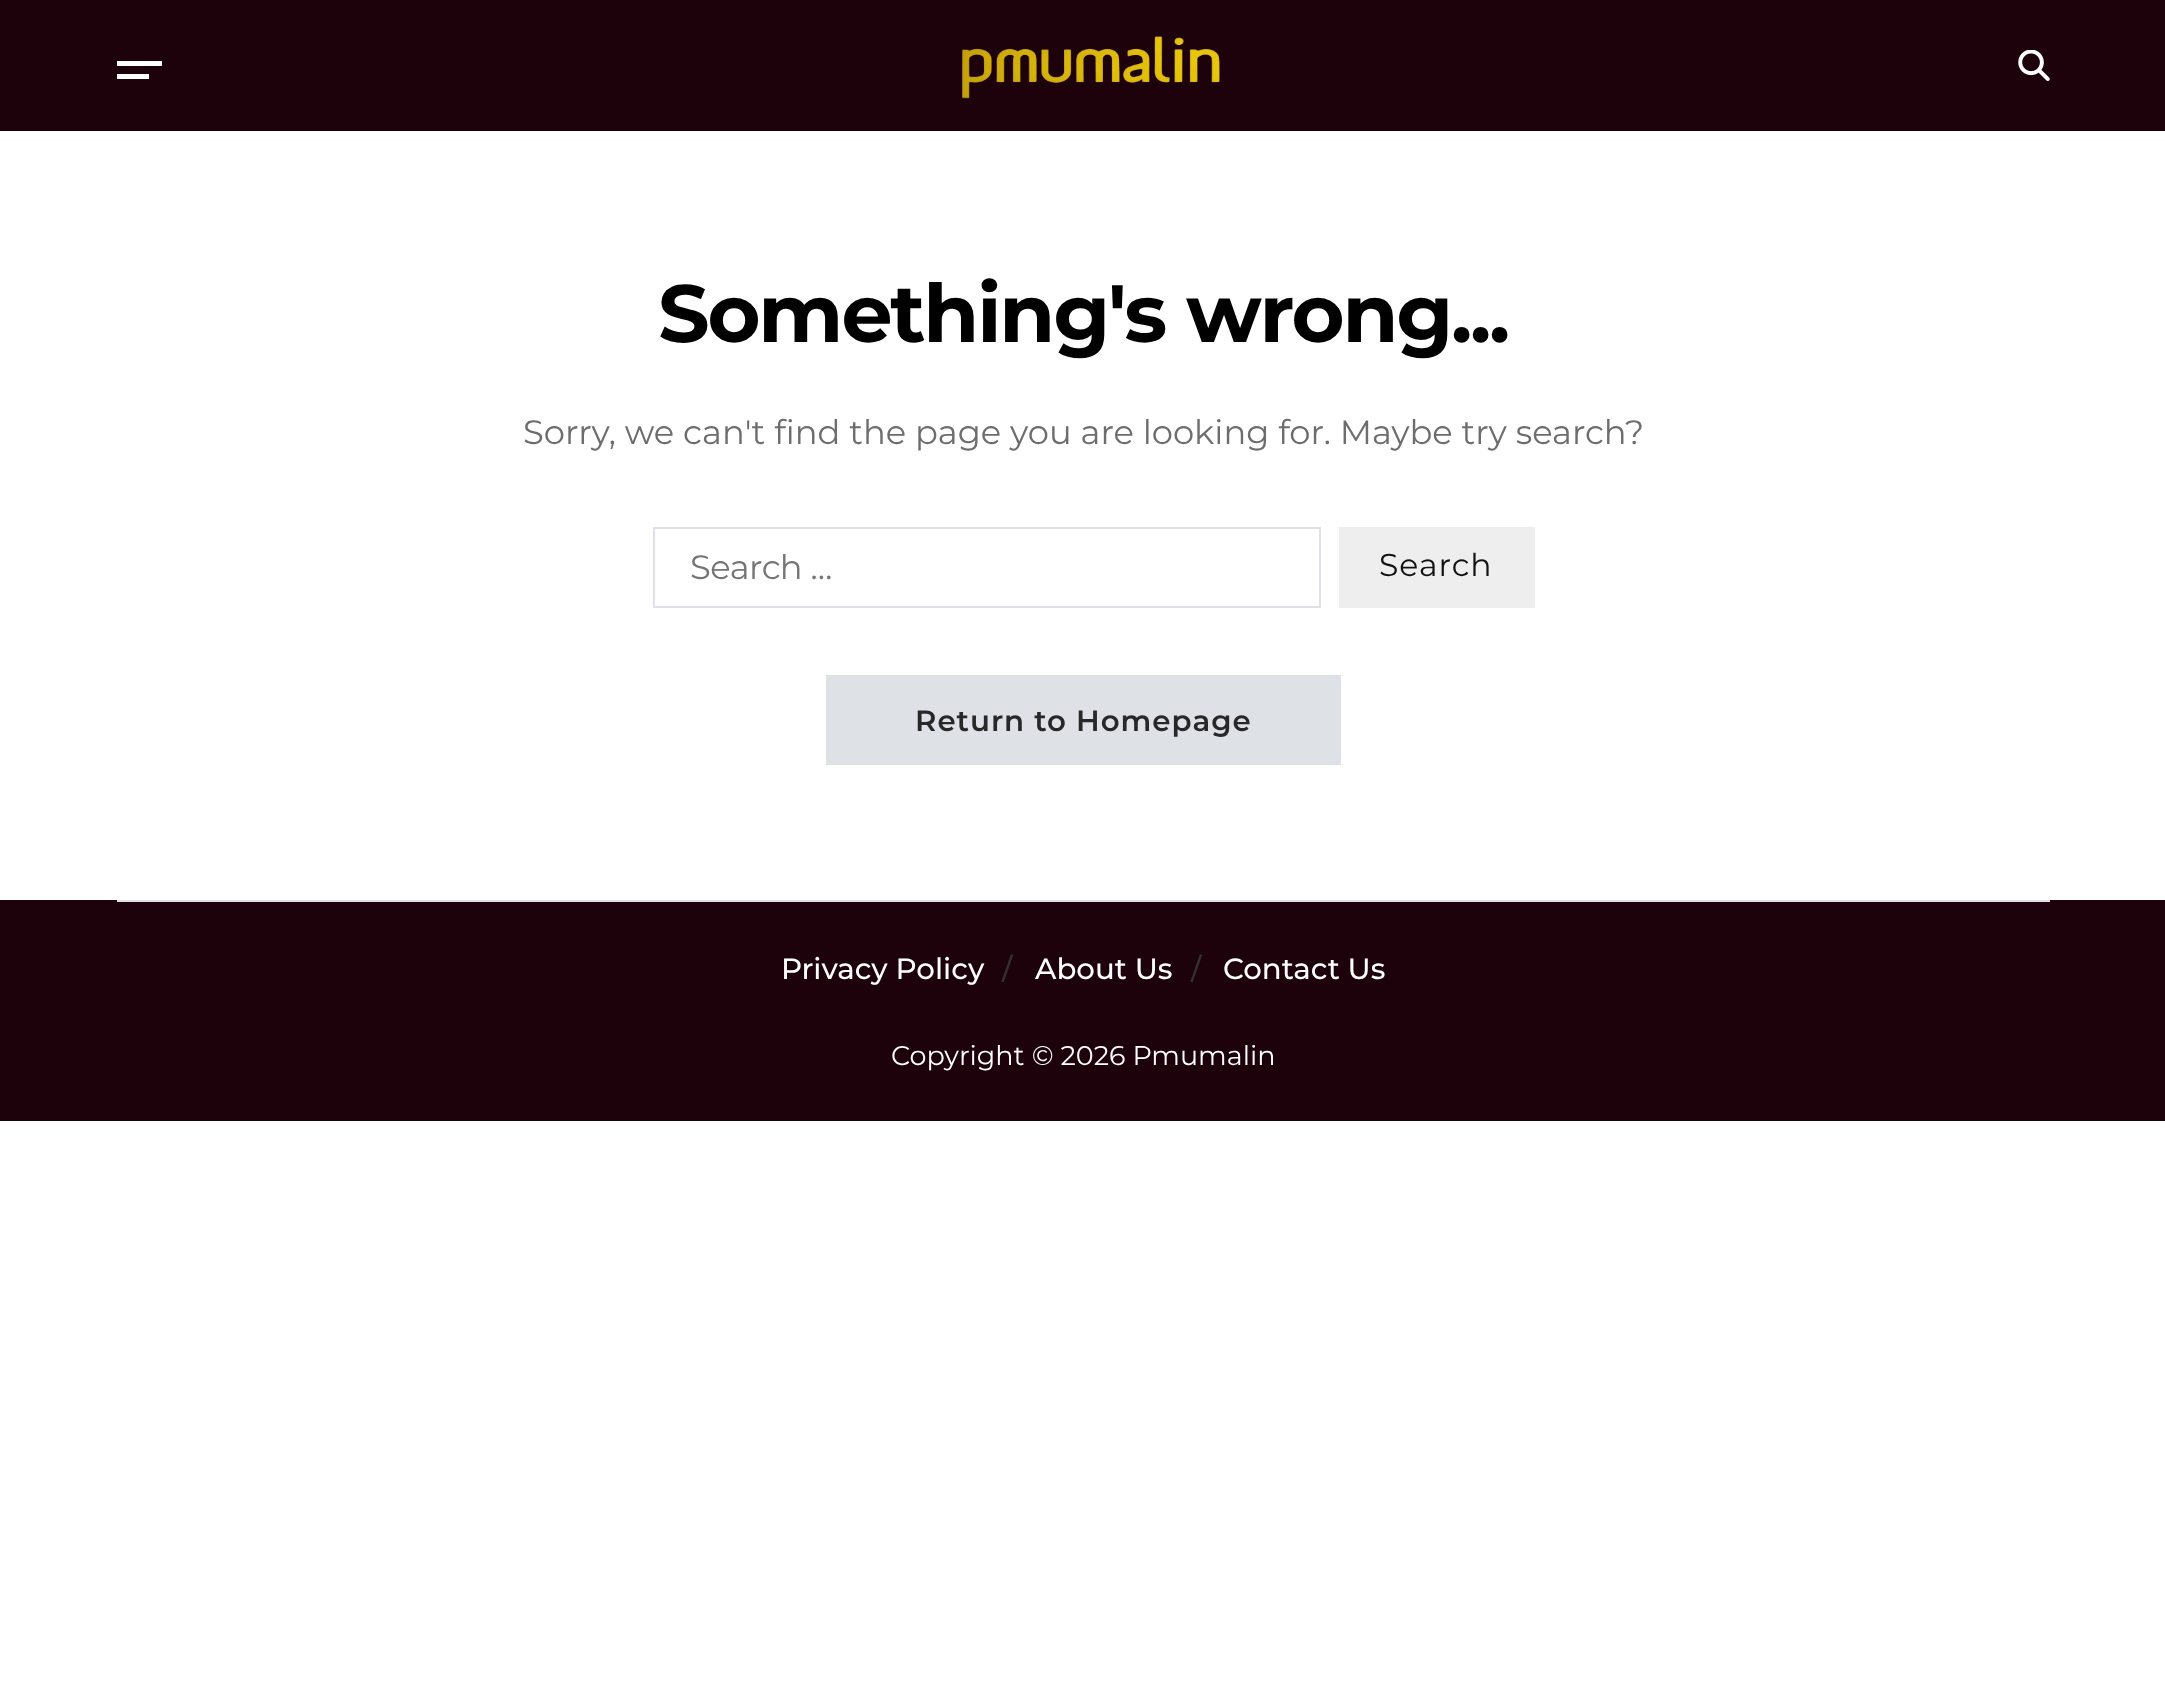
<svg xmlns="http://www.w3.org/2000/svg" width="2165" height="1701">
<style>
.a{font:bold 81px Montserrat;letter-spacing:-2.2px;fill:#000}
.b{font:33.75px Montserrat;fill:#6d6d6d}
.c{font:33.75px Montserrat;letter-spacing:-0.5px;fill:#757575}
.d{font:31.5px Montserrat;letter-spacing:1px;fill:#111}
.e{font:600 29.25px Montserrat;letter-spacing:1px;fill:#282828}
.f{font:500 29.25px Montserrat;fill:#fff}
.g{font:500 29.25px Montserrat;fill:#313131}
.h{font:27px Montserrat;fill:#fff}
</style>
<rect width="100%" height="100%" fill="#fff"/>
<path fill="#1d020b" d="M0 0h2165v131H0z"/>
<path fill="#fff" d="M117 61h45v5H117z"/>
<path fill="#fff" d="M117 74h32v5H117z"/>
<image href="1.png" x="962" y="36" width="258" height="63"/>
<image href="2.png" x="2018" y="50" width="32" height="31"/>
<path fill="none" stroke="#dee2e6" stroke-width="2" d="M654 528h666v79H654z"/>
<path fill="#eee" d="M1339 527h196v81H1339z"/>
<path fill="#dee2e6" d="M826 675h515v90H826z"/>
<path fill="#1d020b" d="M0 900h2165v221H0z"/>
<path fill="#dee2e6" d="M117 900h1933v2H117z"/>
<text class="a" x="658" y="342">Something's wrong...</text>
<text class="b" x="523" y="444">Sorry, we can't find the page you are looking for. Maybe try search?</text>
<text class="c" x="690" y="579">Search …</text>
<text class="d" x="1379" y="576">Search</text>
<text class="e" x="915" y="731">Return to Homepage</text>
<text class="f" x="781" y="979">Privacy Policy</text>
<text class="g" x="1002" y="979">/</text>
<text class="f" x="1035" y="979">About Us</text>
<text class="g" x="1191" y="979">/</text>
<text class="f" x="1223" y="979">Contact Us</text>
<text class="h" x="891" y="1065">Copyright © 2026 Pmumalin</text>
</svg>
